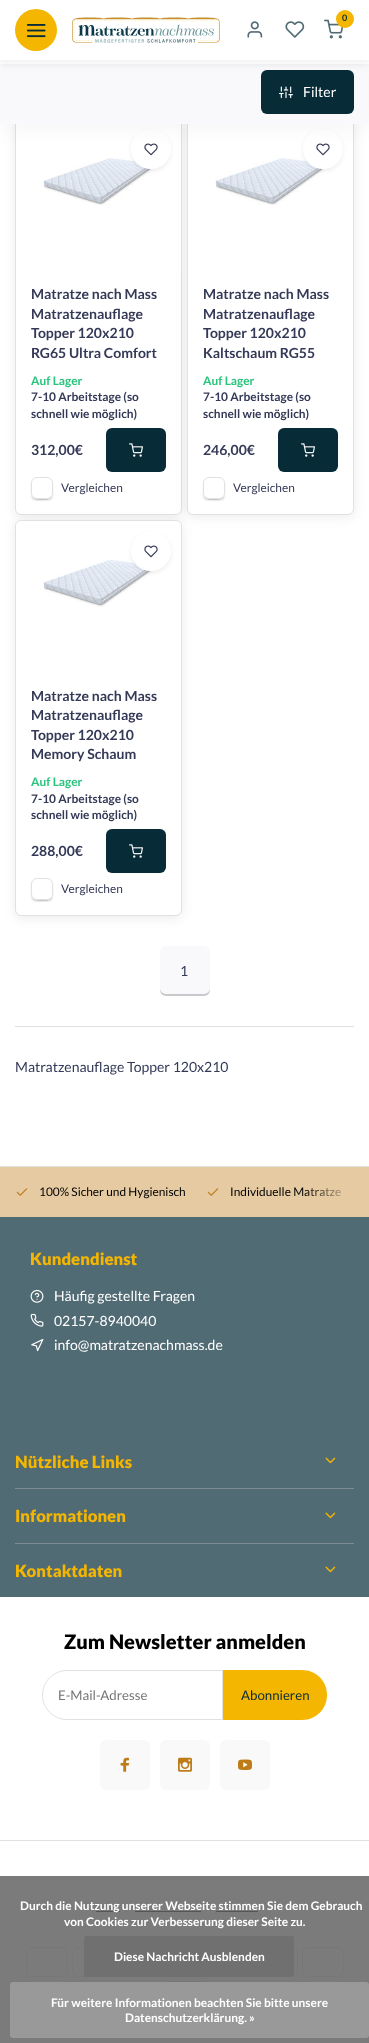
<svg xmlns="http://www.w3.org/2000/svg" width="369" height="2043">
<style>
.a{font:bold 9px Lato;fill:#072c38}
.b{font:14px Lato;fill:#fff}
.c{font:bold 14px Lato;fill:#343957}
.d{font:bold 11.9px Lato;fill:#2ac37d}
.e{font:bold 11.9px Lato;fill:#343957}
.f{font:11.9px Lato;fill:#343957}
.g{font:14px Lato;fill:#343957}
.h{font:11.9px Lato;fill:#000}
.i{font:900 16.75px Lato;fill:#f4b600}
.j{font:900 20px Lato;fill:#000}
.k{font:13.25px Lato;fill:#757575}
.l{font:13.25px Lato;fill:#072c38}
.m{font:bold 11.9px Lato;fill:#fff}
</style>
<defs>
<clipPath id="clip1"><path d="M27 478h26v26h-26zm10-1h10c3.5 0 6 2.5 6 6v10c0 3.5-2.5 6-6 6h-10c-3.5 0-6-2.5-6-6v-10c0-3.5 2.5-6 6-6z" clip-rule="evenodd"/></clipPath>
<clipPath id="clip2"><path d="M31 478h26v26h-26zm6-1h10c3.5 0 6 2.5 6 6v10c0 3.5-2.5 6-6 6h-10c-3.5 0-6-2.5-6-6v-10c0-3.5 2.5-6 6-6z" clip-rule="evenodd"/></clipPath>
<clipPath id="clip3"><path d="M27 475h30v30h-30zm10 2h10c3.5 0 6 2.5 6 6v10c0 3.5-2.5 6-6 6h-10c-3.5 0-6-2.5-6-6v-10c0-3.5 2.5-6 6-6z" clip-rule="evenodd"/></clipPath>
<clipPath id="clip4"><path d="M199 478h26v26h-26zm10-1h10c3.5 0 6 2.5 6 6v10c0 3.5-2.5 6-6 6h-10c-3.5 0-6-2.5-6-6v-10c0-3.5 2.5-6 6-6z" clip-rule="evenodd"/></clipPath>
<clipPath id="clip5"><path d="M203 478h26v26h-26zm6-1h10c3.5 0 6 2.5 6 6v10c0 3.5-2.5 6-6 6h-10c-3.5 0-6-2.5-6-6v-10c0-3.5 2.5-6 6-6z" clip-rule="evenodd"/></clipPath>
<clipPath id="clip6"><path d="M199 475h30v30h-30zm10 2h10c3.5 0 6 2.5 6 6v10c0 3.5-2.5 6-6 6h-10c-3.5 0-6-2.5-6-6v-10c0-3.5 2.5-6 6-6z" clip-rule="evenodd"/></clipPath>
<clipPath id="clip7"><path d="M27 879h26v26h-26zm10-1h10c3.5 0 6 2.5 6 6v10c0 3.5-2.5 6-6 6h-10c-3.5 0-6-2.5-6-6v-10c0-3.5 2.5-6 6-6z" clip-rule="evenodd"/></clipPath>
<clipPath id="clip8"><path d="M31 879h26v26h-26zm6-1h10c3.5 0 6 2.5 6 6v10c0 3.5-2.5 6-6 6h-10c-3.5 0-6-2.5-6-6v-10c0-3.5 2.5-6 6-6z" clip-rule="evenodd"/></clipPath>
<clipPath id="clip9"><path d="M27 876h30v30h-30zm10 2h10c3.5 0 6 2.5 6 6v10c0 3.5-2.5 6-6 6h-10c-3.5 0-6-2.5-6-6v-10c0-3.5 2.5-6 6-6z" clip-rule="evenodd"/></clipPath>
<linearGradient id="g1" gradientUnits="userSpaceOnUse" x1="303" y1="1192" x2="354" y2="1192"><stop offset="0" stop-color="#e5caa2" stop-opacity="0"/><stop offset="1" stop-color="#e5caa2"/></linearGradient>
</defs>
<rect width="100%" height="100%" fill="#fff"/>
<rect fill="#00000014" filter="blur(6px)" x="15" y="120" width="167" height="397" rx="6"/>
<rect fill="#fff" stroke="#e1e1e1" x="15.5" y="118.5" width="166" height="396" rx="5.5"/>
<image href="8.png" x="43" y="158" width="110" height="47"/>
<rect fill="#00000012" filter="blur(2px)" x="131" y="131" width="40" height="40" rx="20"/>
<rect fill="#00000014" filter="blur(6px)" x="187" y="120" width="167" height="397" rx="6"/>
<circle fill="#fff" cx="151" cy="149" r="20"/>
<image href="7.png" x="144" y="143" width="14" height="13"/>
<path fill="#fff" d="M180 130h1v139H180z"/>
<rect fill="#fff" stroke="#e1e1e1" x="187.5" y="118.5" width="166" height="396" rx="5.5"/>
<image href="8.png" x="215" y="158" width="110" height="47"/>
<rect fill="#00000012" filter="blur(2px)" x="303" y="131" width="40" height="40" rx="20"/>
<circle fill="#fff" cx="323" cy="149" r="20"/>
<image href="7.png" x="316" y="143" width="14" height="13"/>
<path fill="#0000000d" filter="blur(12.5px)" d="M0 61h369v64H0z"/>
<path fill="#f9f9fb" d="M1 64h367v60H1z"/>
<rect fill="#072c38" x="261" y="70" width="93" height="44" rx="6"/>
<path fill="#0000000d" filter="blur(5px)" d="M0 5h369v60H0z"/>
<path fill="#fff" d="M0 60h369v4H0z"/>
<path fill="#0000000d" filter="blur(2px)" d="M0 3h369v60H0z"/>
<path fill="#fff" d="M0 0h369v60H0z"/>
<circle fill="#f4b600" cx="36" cy="30" r="21"/>
<image href="1.png" x="26" y="24" width="20" height="14"/>
<image href="2.png" x="72" y="17" width="148" height="26"/>
<image href="3.png" x="324" y="19" width="20" height="20"/>
<circle fill="#f4b600" cx="345" cy="19" r="9"/>
<image href="4.png" x="247" y="21" width="16" height="17"/>
<image href="5.png" x="285" y="21" width="20" height="17"/>
<image href="6.png" x="279" y="86" width="14" height="13"/>
<rect fill="#072c38" x="106" y="428" width="60" height="44" rx="6"/>
<image href="9.png" x="129" y="443" width="14" height="14"/>
<g clip-path="url(#clip1)">
<rect fill="#999" filter="blur(1.5px)" x="33" y="484" width="14" height="14" rx="2"/>
</g>
<g clip-path="url(#clip2)">
<rect fill="#999" filter="blur(1.5px)" x="37" y="484" width="14" height="14" rx="2"/>
</g>
<g clip-path="url(#clip3)">
<rect fill="#999" filter="blur(1.5px)" x="33" y="481" width="18" height="18" rx="4"/>
</g>
<rect fill="none" stroke="#e1e1e1" x="31.5" y="477.5" width="21" height="21" rx="5.5"/>
<rect fill="#072c38" x="278" y="428" width="60" height="44" rx="6"/>
<image href="9.png" x="301" y="443" width="14" height="14"/>
<g clip-path="url(#clip4)">
<rect fill="#999" filter="blur(1.5px)" x="205" y="484" width="14" height="14" rx="2"/>
</g>
<g clip-path="url(#clip5)">
<rect fill="#999" filter="blur(1.5px)" x="209" y="484" width="14" height="14" rx="2"/>
</g>
<g clip-path="url(#clip6)">
<rect fill="#999" filter="blur(1.5px)" x="205" y="481" width="18" height="18" rx="4"/>
</g>
<rect fill="none" stroke="#e1e1e1" x="203.5" y="477.5" width="21" height="21" rx="5.5"/>
<rect fill="#00000014" filter="blur(6px)" x="15" y="522" width="167" height="396" rx="6"/>
<rect fill="#fff" stroke="#e1e1e1" x="15.5" y="520.5" width="166" height="395" rx="5.5"/>
<path fill="#fff" d="M22 521h153c3.5 0 6 2.5 6 6v144h-165v-144c0-3.5 2.5-6 6-6z"/>
<image href="10.png" x="43" y="559" width="110" height="48"/>
<rect fill="#00000012" filter="blur(2px)" x="131" y="533" width="40" height="40" rx="20"/>
<circle fill="#fff" cx="151" cy="551" r="20"/>
<image href="7.png" x="144" y="545" width="14" height="13"/>
<rect fill="#072c38" x="106" y="829" width="60" height="44" rx="6"/>
<image href="9.png" x="129" y="844" width="14" height="14"/>
<g clip-path="url(#clip7)">
<rect fill="#999" filter="blur(1.5px)" x="33" y="885" width="14" height="14" rx="2"/>
</g>
<g clip-path="url(#clip8)">
<rect fill="#999" filter="blur(1.5px)" x="37" y="885" width="14" height="14" rx="2"/>
</g>
<g clip-path="url(#clip9)">
<rect fill="#999" filter="blur(1.5px)" x="33" y="882" width="18" height="18" rx="4"/>
</g>
<rect fill="none" stroke="#e1e1e1" x="31.5" y="878.5" width="21" height="21" rx="5.5"/>
<rect fill="#f9f9fb" x="160" y="946" width="50" height="50" rx="6"/>
<path fill="#c9c9cb" d="M160 988c0 9 5 8 12 8h26c7 0 12 1 12-8c0 3-3 6-6 6h-38c-3 0-6-3-6-6z"/>
<path fill="#e1e1e1" d="M15 1026h339v1H15z"/>
<path fill="#e5caa2" d="M0 1167h369v50H0z"/>
<path fill="#e1e1e1" d="M0 1166h369v1H0z"/>
<image href="11.png" x="16" y="1188" width="12" height="8"/>
<image href="11.png" x="207" y="1188" width="12" height="8"/>
<path fill="#516b74" d="M0 1217h369v380H0z"/>
<image href="12.png" x="30" y="1289" width="14" height="14"/>
<image href="13.png" x="30" y="1313" width="14" height="14"/>
<image href="14.png" x="31" y="1338" width="13" height="14"/>
<path fill="#7c8c92" d="M15 1488h339v1H15z"/>
<image href="15.png" x="325" y="1457" width="11" height="7"/>
<path fill="#7c8c92" d="M15 1543h339v1H15z"/>
<image href="15.png" x="325" y="1512" width="11" height="7"/>
<image href="15.png" x="325" y="1566" width="11" height="7"/>
<path fill="none" stroke="#e1e1e1" d="M67 1670.5h155.5v49h-155.5c-13.5 0-24.5-11-24.5-24.5c0-13.5 11-24.5 24.5-24.5z"/>
<path fill="#f4b600" d="M223 1670h79c14 0 25 11 25 25c0 14-11 25-25 25h-79z"/>
<rect fill="#f9f9f9" x="100" y="1740" width="50" height="50" rx="6"/>
<image href="16.png" x="120" y="1757" width="10" height="15"/>
<rect fill="#f9f9f9" x="160" y="1740" width="50" height="50" rx="6"/>
<image href="17.png" x="178" y="1757" width="14" height="15"/>
<rect fill="#f9f9f9" x="220" y="1740" width="50" height="50" rx="6"/>
<image href="18.png" x="238" y="1759" width="14" height="11"/>
<path fill="#e1e1e1" d="M0 1840h369v1H0z"/>
<path fill="#000" d="M96 1911h24v1H96z"/>
<path fill="#000" d="M135 1911h66v1H135z"/>
<path fill="#000" d="M216 1911h42v1H216z"/>
<rect fill="none" stroke="#e1e1e1" x="26.5" y="1947.5" width="41" height="29" rx="5.5"/>
<rect fill="none" stroke="#e1e1e1" x="72.5" y="1947.5" width="41" height="29" rx="5.5"/>
<rect fill="none" stroke="#e1e1e1" x="256.5" y="1947.5" width="41" height="29" rx="5.5"/>
<rect fill="none" stroke="#e1e1e1" x="302.5" y="1947.5" width="41" height="29" rx="5.5"/>
<rect fill="none" stroke="#e1e1e1" x="164.5" y="1981.5" width="41" height="29" rx="5.5"/>
<path fill="#646464d9" d="M0 1876h369v167H0z"/>
<rect fill="#707070" x="84" y="1936" width="210" height="41" rx="3"/>
<rect fill="#999" x="10" y="1982" width="359" height="56" rx="3"/>
<text class="a" x="342" y="21">0</text>
<text class="b" x="303" y="97">Filter</text>
<text class="c" x="31" y="299">Matratze nach Mass</text>
<text class="c" x="31" y="319">Matratzenauflage</text>
<text class="c" x="31" y="338">Topper 120x210</text>
<text class="c" x="31" y="358">RG65 Ultra Comfort</text>
<text class="d" x="31" y="385">Auf Lager</text>
<text class="e" x="31" y="401">7-10 Arbeitstage (so</text>
<text class="e" x="31" y="418">schnell wie möglich)</text>
<text class="c" x="31" y="455">312,00€</text>
<text class="f" x="61" y="492">Vergleichen</text>
<text class="c" x="203" y="299">Matratze nach Mass</text>
<text class="c" x="203" y="319">Matratzenauflage</text>
<text class="c" x="203" y="338">Topper 120x210</text>
<text class="c" x="203" y="358">Kaltschaum RG55</text>
<text class="d" x="203" y="385">Auf Lager</text>
<text class="e" x="203" y="401">7-10 Arbeitstage (so</text>
<text class="e" x="203" y="418">schnell wie möglich)</text>
<text class="c" x="203" y="455">246,00€</text>
<text class="f" x="233" y="492">Vergleichen</text>
<text class="c" x="31" y="701">Matratze nach Mass</text>
<text class="c" x="31" y="720">Matratzenauflage</text>
<text class="c" x="31" y="740">Topper 120x210</text>
<text class="c" x="31" y="759">Memory Schaum</text>
<text class="d" x="31" y="786">Auf Lager</text>
<text class="e" x="31" y="803">7-10 Arbeitstage (so</text>
<text class="e" x="31" y="819">schnell wie möglich)</text>
<text class="c" x="31" y="856">288,00€</text>
<text class="f" x="61" y="893">Vergleichen</text>
<text class="g" x="180" y="976">1</text>
<text class="g" x="15" y="1072">Matratzenauflage Topper 120x210</text>
<text class="h" x="39" y="1196">100% Sicher und Hygienisch</text>
<text class="h" x="230" y="1196">Individuelle Matratze</text>
<path fill="url(#g1)" d="M304 1188h37v9H304z"/>
<text class="i" x="30" y="1265">Kundendienst</text>
<text class="b" x="54" y="1301">Häufig gestellte Fragen</text>
<text class="b" x="54" y="1326">02157-8940040</text>
<text class="b" x="54" y="1350">info@matratzenachmass.de</text>
<text class="i" x="15" y="1468">Nützliche Links</text>
<text class="i" x="15" y="1522">Informationen</text>
<text class="i" x="15" y="1577">Kontaktdaten</text>
<text class="j" x="64" y="1649">Zum Newsletter anmelden</text>
<text class="k" x="58" y="1700">E-Mail-Adresse</text>
<text class="l" x="241" y="1700">Abonnieren</text>
<text class="m" x="20" y="1910">Durch die Nutzung unserer Webseite stimmen Sie dem Gebrauch</text>
<text class="m" x="64" y="1926">von Cookies zur Verbesserung dieser Seite zu.</text>
<text class="m" x="114" y="1961">Diese Nachricht Ausblenden</text>
<text class="m" x="51" y="2007">Für weitere Informationen beachten Sie bitte unsere</text>
<text class="m" x="125" y="2022">Datenschutzerklärung. »</text>
</svg>
